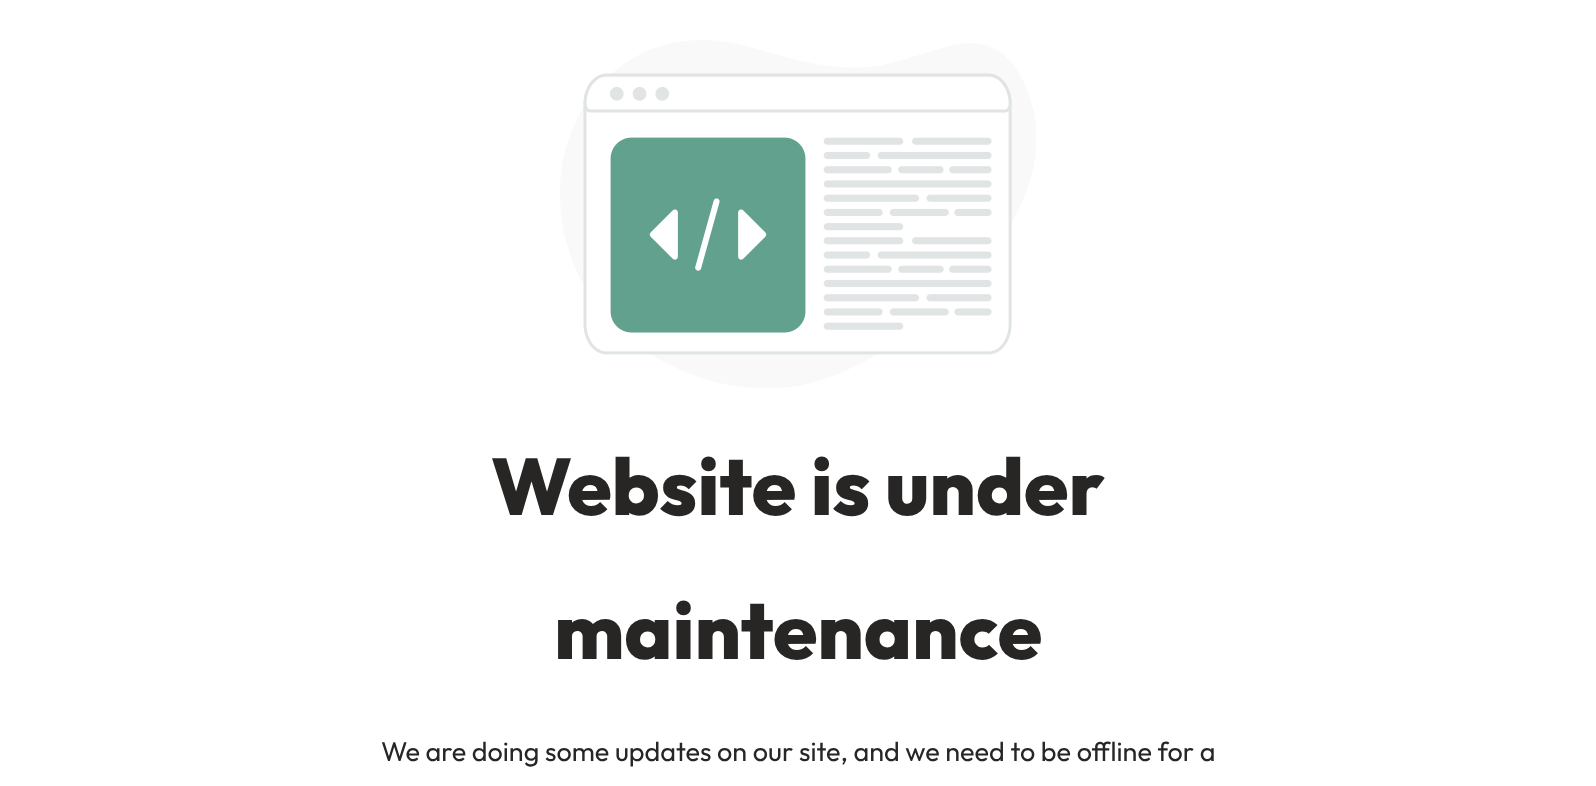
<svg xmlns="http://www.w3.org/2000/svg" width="1596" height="786">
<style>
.a{font:800 80px Outfit;fill:#282525}
.b{font:27px Outfit;fill:#282525}
</style>
<rect width="100%" height="100%" fill="#fff"/>
<image href="1.png" x="560" y="40" width="476" height="348"/>
<text class="a" x="491" y="515">Website is under</text>
<text class="a" x="554" y="659">maintenance</text>
<text class="b" x="381" y="761">We are doing some updates on our site, and we need to be offline for a</text>
</svg>
